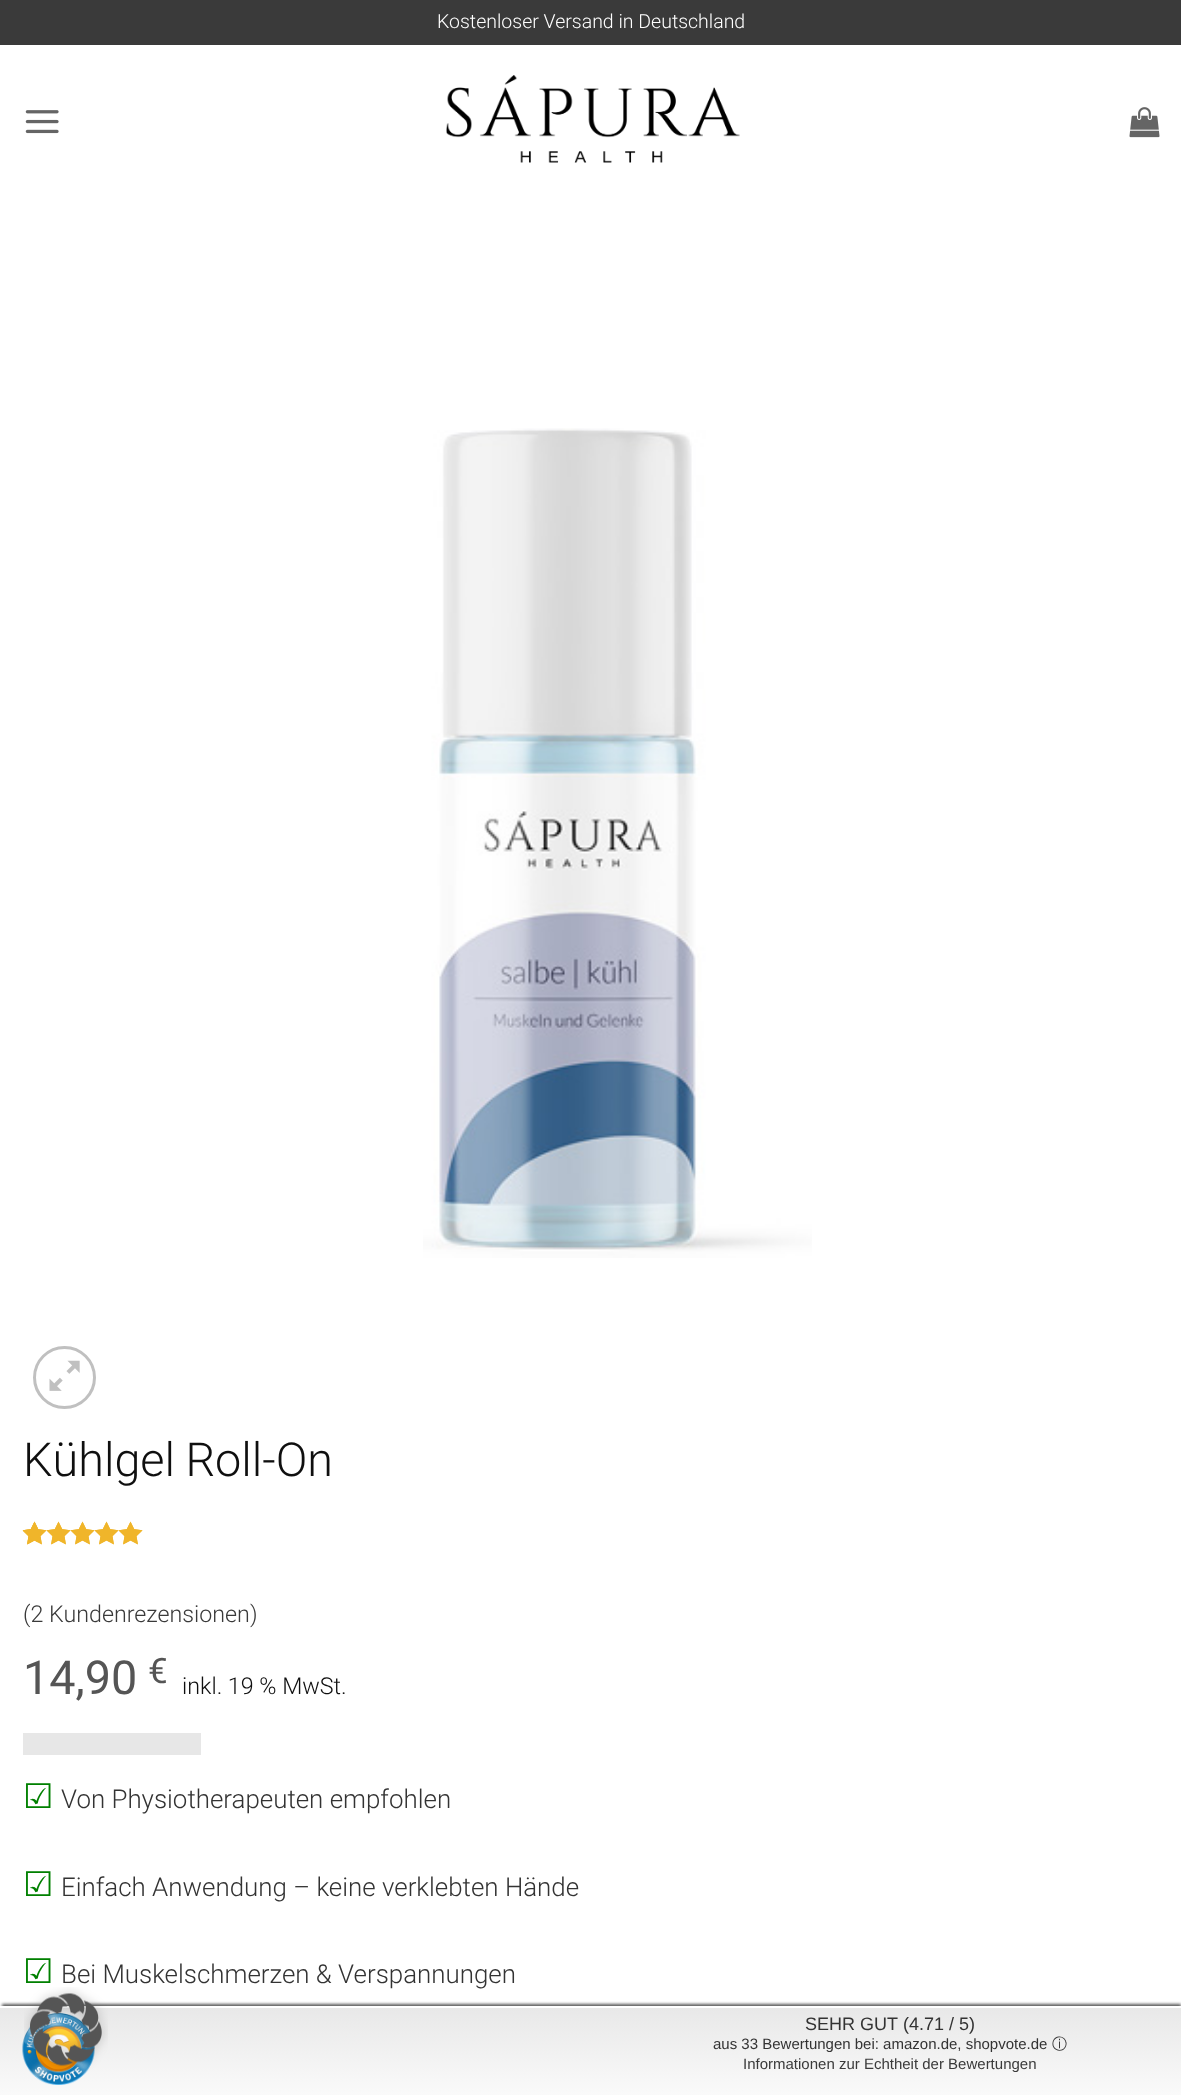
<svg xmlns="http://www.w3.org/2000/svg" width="1181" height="2095">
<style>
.a{font:300 19.5px Roboto;fill:#fff}
.b{font:300 46.75px Roboto;fill:#0f0f0f}
.c{font:300 23.25px Roboto;fill:#3a3a3a}
.d{font:46.75px Roboto;fill:#555}
.e{font:35px Roboto;fill:#555}
.f{font:300 23.25px Roboto;fill:#0f0f0f}
.g{font:34px DejaVu Sans;fill:#008000}
.h{font:300 25.9px Roboto;fill:#333}
.i{font:18px Liberation Sans;fill:#333}
.j{font:15px Liberation Sans;fill:#333}
.k{font:500 15px WenQuanYi Zen Hei;fill:#333}
.l{font:15px Liberation Sans;fill:#3a3a3a}
</style>
<defs>
<linearGradient id="g1" gradientUnits="userSpaceOnUse" x1="591" y1="2007" x2="591" y2="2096"><stop offset="0" stop-color="#f0f0f0"/><stop offset="0" stop-color="#e8e8e8"/><stop offset="1" stop-color="#fafafa"/></linearGradient>
</defs>
<rect width="100%" height="100%" fill="#fff"/>
<path fill="#3a3a3a" d="M0 0h1181v45H0z"/>
<image href="1.png" x="25" y="110" width="34" height="24"/>
<image href="2.png" x="446" y="75" width="294" height="88"/>
<image href="3.png" x="1129" y="107" width="31" height="31"/>
<image href="4.png" x="423" y="428" width="389" height="830"/>
<circle fill="none" stroke="#c0c0c0" stroke-width="3" cx="64.5" cy="1377.5" r="30"/>
<image href="5.png" x="49" y="1360" width="31" height="31"/>
<image href="6.png" x="22" y="1521" width="121" height="24"/>
<image href="7.png" x="23" y="1521" width="120" height="24"/>
<image href="8.png" x="23" y="1521" width="15" height="24"/>
<path fill="#e7e7e7" d="M23 1733h178v22H23z"/>
<path fill="#000000a6" filter="blur(1.5px)" d="M2 2004h1179v87H2z"/>
<path fill="url(#g1)" d="M0 2008h1181v87H0z"/>
<path fill="#fff" d="M0 2006h1181v2H0z"/>
<image href="10.png" x="22" y="2013" width="73" height="72"/>
<text class="a" x="437" y="28">Kostenloser Versand in Deutschland</text>
<text class="b" x="23" y="1476" word-spacing="-1">Kühlgel Roll-On</text>
<text class="c" x="23" y="1622">(2 Kundenrezensionen)</text>
<text class="d" x="23" y="1694">14,90</text>
<text class="e" x="148" y="1683">€</text>
<text class="f" x="182" y="1694">inkl. 19 % MwSt.</text>
<text class="g" x="23" y="1808">☑</text>
<text class="h" x="61" y="1808">Von Physiotherapeuten empfohlen</text>
<text class="g" x="23" y="1896">☑</text>
<text class="h" x="61" y="1896">Einfach Anwendung – keine verklebten Hände</text>
<text class="g" x="23" y="1983">☑</text>
<text class="h" x="61" y="1983">Bei Muskelschmerzen &amp; Verspannungen</text>
<image href="9.png" x="24" y="1987" width="84" height="84"/>
<text class="i" x="805" y="2030">SEHR GUT</text>
<text class="i" x="903" y="2030">(4.71 / 5)</text>
<text class="j" x="713" y="2049">aus 33 Bewertungen bei: amazon.de, shopvote.de</text>
<text class="k" x="1052" y="2049">ⓘ</text>
<text class="l" x="743" y="2069">Informationen zur Echtheit der Bewertungen</text>
</svg>
